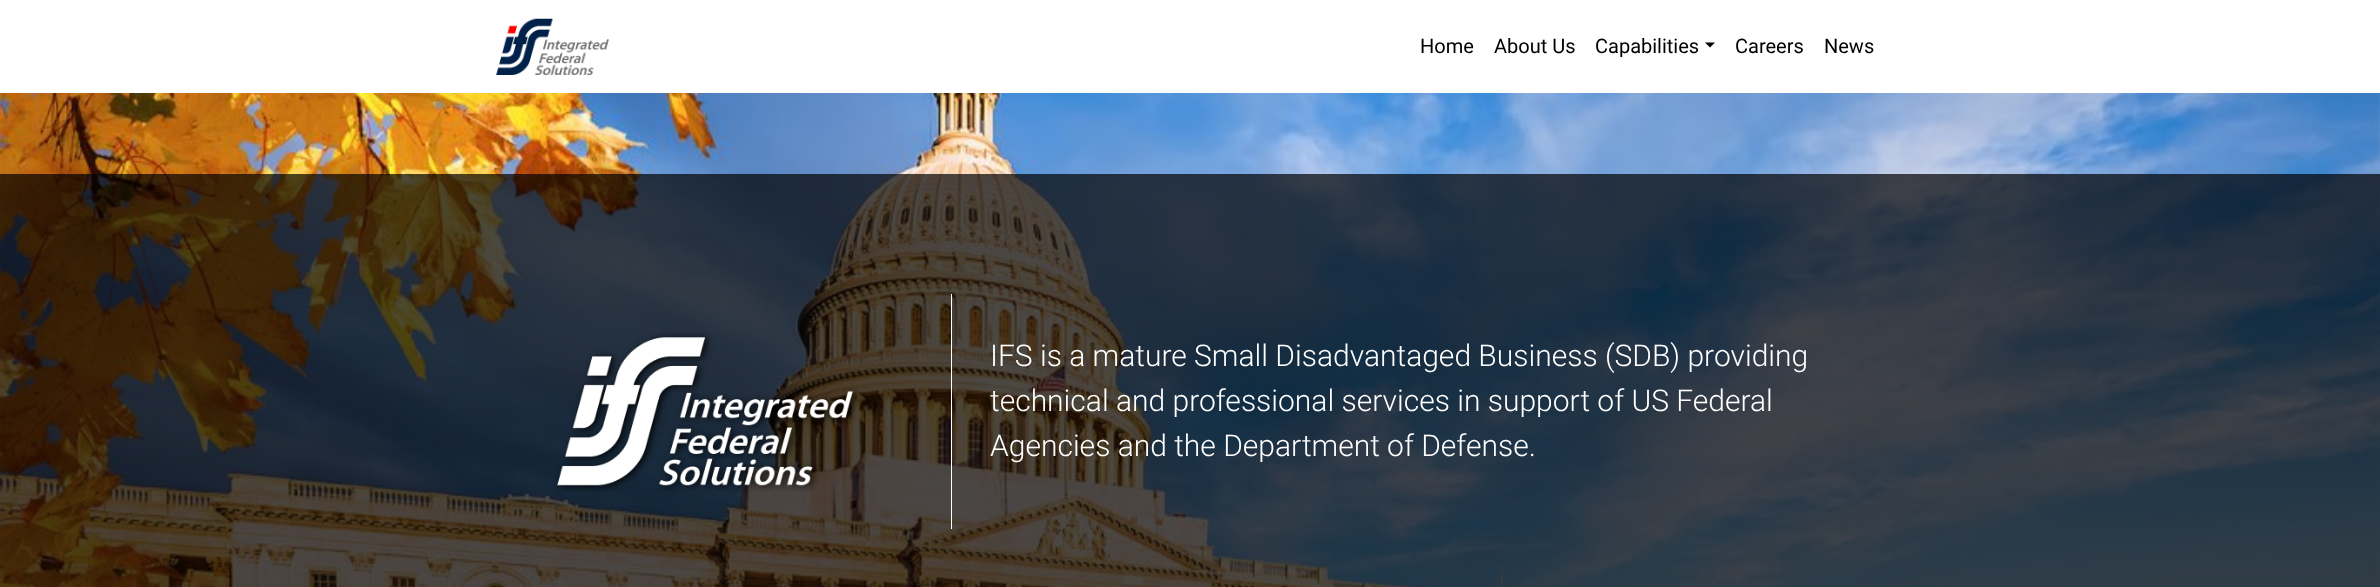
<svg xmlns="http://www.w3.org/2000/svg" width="2380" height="587">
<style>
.a{font:20px Roboto;fill:#000}
.b{font:300 30px Roboto;fill:#fff}
</style>
<rect width="100%" height="100%" fill="#fff"/>
<image href="1.png" x="496" y="18" width="113" height="57"/>
<path fill="#000" d="M1705 42.5h10l-5 5z"/>
<image href="2.png" x="0" y="93" width="2380" height="494"/>
<path fill="#000000b3" d="M0 174h2380v413H0z"/>
<path fill="#fff" d="M951 294h1v235H951z"/>
<image href="3.png" x="556" y="333" width="303" height="159"/>
<text class="a" x="1420" y="53">Home</text>
<text class="a" x="1494" y="53">About Us</text>
<text class="a" x="1595" y="53">Capabilities</text>
<text class="a" x="1735" y="53">Careers</text>
<text class="a" x="1824" y="53">News</text>
<text class="b" x="990" y="366">IFS is a mature Small Disadvantaged Business (SDB) providing</text>
<text class="b" x="990" y="411">technical and professional services in support of US Federal</text>
<text class="b" x="990" y="456">Agencies and the Department of Defense.</text>
</svg>
